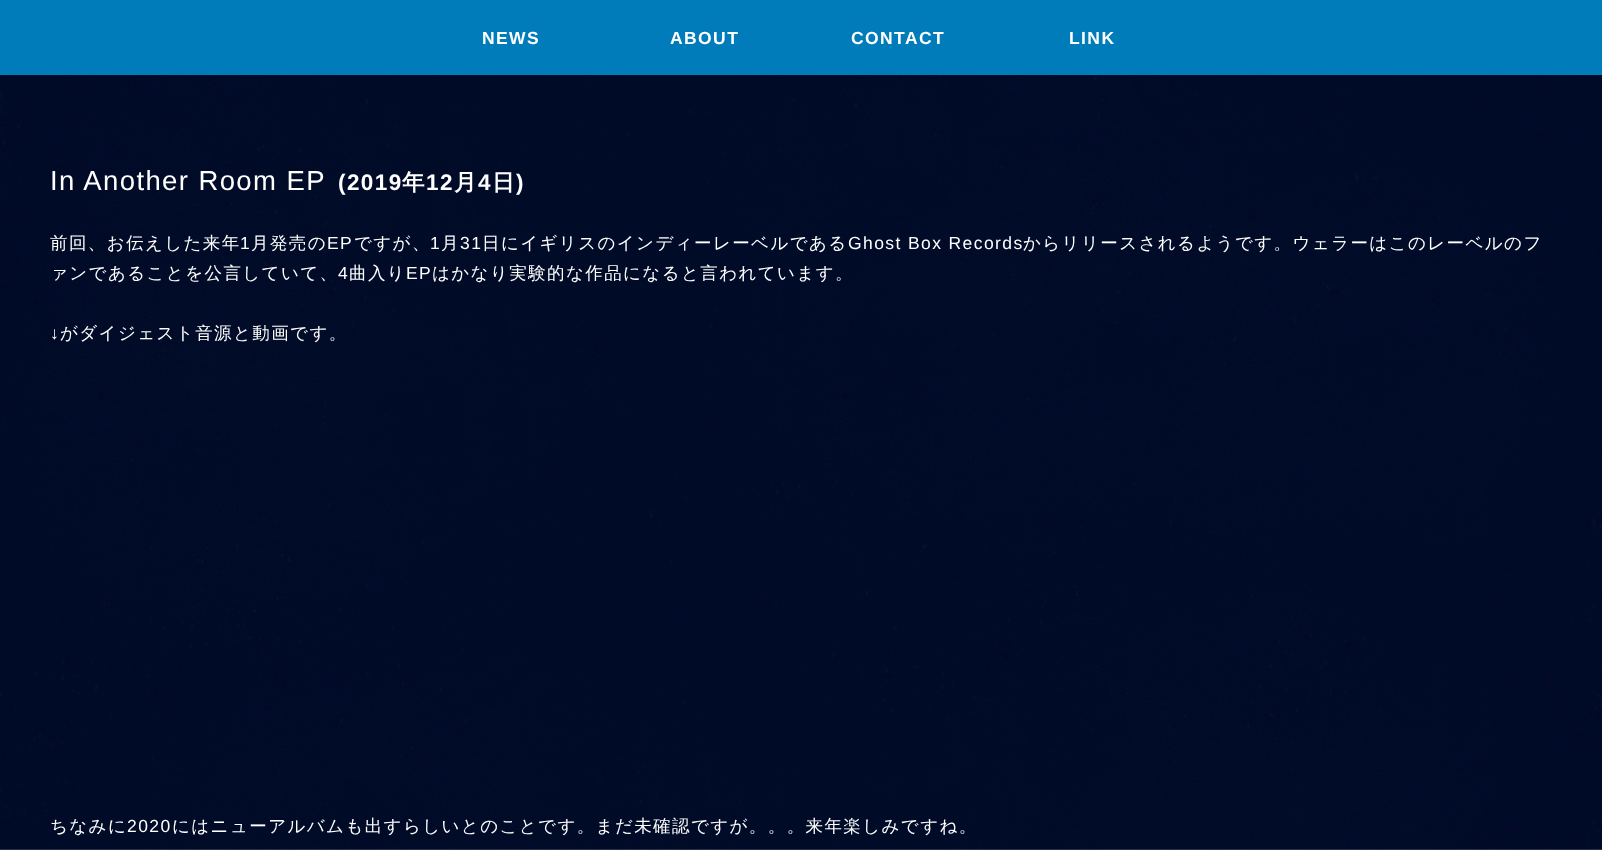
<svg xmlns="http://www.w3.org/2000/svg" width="1602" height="850">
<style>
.a{font:bold 17.5px Liberation Sans;letter-spacing:1.4px;fill:#fff}
.b{font:27.5px Liberation Sans;letter-spacing:1.4px;fill:#fff}
.c{font:bold 22.5px Liberation Sans;letter-spacing:1.4px;fill:#fff}
.d{font:bold 22.5px WenQuanYi Zen Hei;letter-spacing:1.4px;fill:#fff}
.e{font:500 17.5px WenQuanYi Zen Hei;letter-spacing:1.4px;fill:#fff}
.f{font:17.5px Liberation Sans;letter-spacing:1.4px;fill:#fff}
</style>
<rect width="100%" height="100%" fill="#fff"/>
<image href="1.png" x="0" y="75" width="1602" height="775"/>
<path fill="#007cba" d="M0 0h1602v75H0z"/>
<text class="a" x="482" y="44">NEWS</text>
<text class="a" x="670" y="44">ABOUT</text>
<text class="a" x="851" y="44">CONTACT</text>
<text class="a" x="1069" y="44">LINK</text>
<text class="b" x="50" y="190">In Another Room EP</text>
<text class="c" x="338" y="190">(2019</text>
<text class="d" x="402" y="190">年</text>
<text class="c" x="426" y="190">12</text>
<text class="d" x="454" y="190">月</text>
<text class="c" x="478" y="190">4</text>
<text class="d" x="492" y="190">日</text>
<text class="c" x="516" y="190">)</text>
<text class="e" x="50" y="249">前回、お伝えした来年</text>
<text class="f" x="240" y="249">1</text>
<text class="e" x="251" y="249">月発売の</text>
<text class="f" x="327" y="249">EP</text>
<text class="e" x="354" y="249">ですが、</text>
<text class="f" x="430" y="249">1</text>
<text class="e" x="441" y="249">月</text>
<text class="f" x="460" y="249">31</text>
<text class="e" x="482" y="249">日にイギリスのインディーレーベルである</text>
<text class="f" x="848" y="249">Ghost Box Records</text>
<text class="e" x="1023" y="249">からリリースされるようです。ウェラーはこのレーベルのフ</text>
<text class="e" x="50" y="279">ァンであることを公言していて、</text>
<text class="f" x="338" y="279">4</text>
<text class="e" x="349" y="279">曲入り</text>
<text class="f" x="406" y="279">EP</text>
<text class="e" x="432" y="279">はかなり実験的な作品になると言われています。</text>
<text class="f" x="50" y="339">↓</text>
<text class="e" x="60" y="339">がダイジェスト音源と動画です。</text>
<text class="e" x="50" y="832">ちなみに</text>
<text class="f" x="127" y="832">2020</text>
<text class="e" x="172" y="832">にはニューアルバムも出すらしいとのことです。まだ未確認ですが。。。来年楽しみですね。</text>
</svg>
